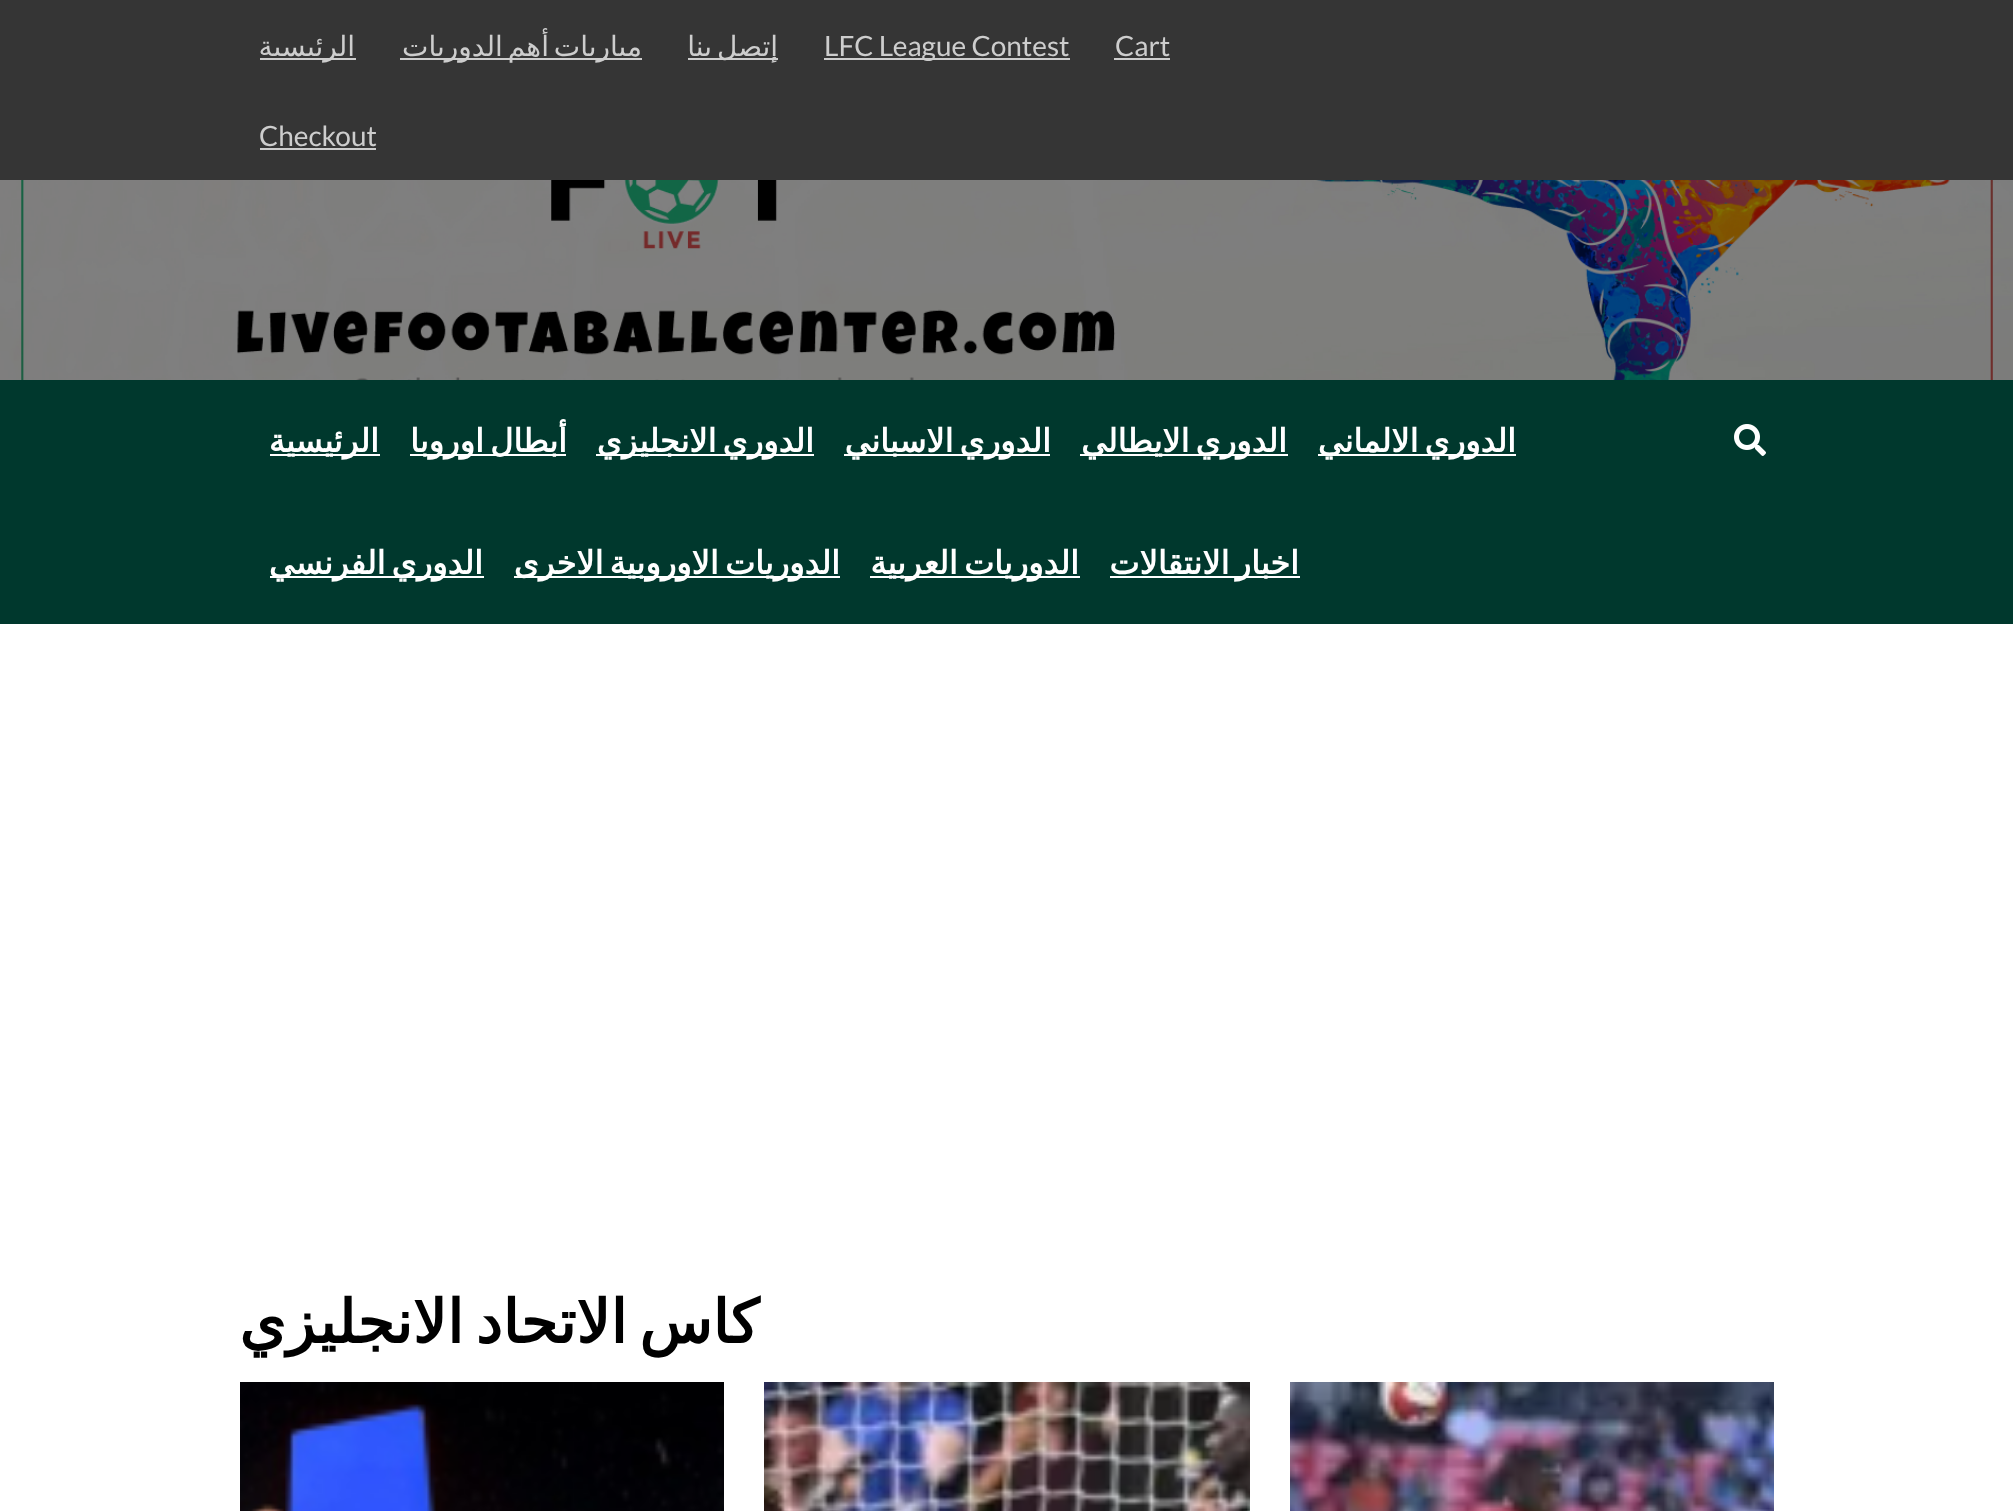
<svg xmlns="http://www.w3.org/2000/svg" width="2013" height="1511">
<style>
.a{font:28px Lato;fill:#cdcdcd}
.b{font:28px DejaVu Sans;direction:rtl;fill:#cdcdcd}
.c{font:bold 32px DejaVu Sans;direction:rtl;fill:#fff}
.d{font:bold 60px DejaVu Sans;direction:rtl;fill:#000}
</style>
<rect width="100%" height="100%" fill="#fff"/>
<path fill="#353535" d="M0 0h2013v180H0z"/>
<path fill="#cdcdcd" d="M1114 58h56v2H1114z"/>
<path fill="#cdcdcd" d="M824 58h246v2H824z"/>
<path fill="#cdcdcd" d="M688 58h90v2H688z"/>
<path fill="#cdcdcd" d="M400 58h242v2H400z"/>
<path fill="#cdcdcd" d="M260 58h96v2H260z"/>
<path fill="#cdcdcd" d="M260 148h116v2H260z"/>
<image href="1.png" x="0" y="180" width="2013" height="200"/>
<path fill="#00382d" d="M0 380h2013v244H0z"/>
<image href="2.png" x="1734" y="424" width="32" height="32"/>
<path fill="#fff" d="M1318 454h198v2H1318z"/>
<path fill="#fff" d="M1080 454h208v2H1080z"/>
<path fill="#fff" d="M844 454h206v2H844z"/>
<path fill="#fff" d="M596 454h218v2H596z"/>
<path fill="#fff" d="M410 454h156v2H410z"/>
<path fill="#fff" d="M270 454h110v2H270z"/>
<path fill="#fff" d="M1110 576h190v2H1110z"/>
<path fill="#fff" d="M870 576h210v2H870z"/>
<path fill="#fff" d="M514 576h326v2H514z"/>
<path fill="#fff" d="M270 576h214v2H270z"/>
<image href="3.png" x="1290" y="1382" width="484" height="129"/>
<image href="4.png" x="764" y="1382" width="486" height="129"/>
<image href="5.png" x="240" y="1382" width="484" height="129"/>
<text class="a" x="1115" y="56">Cart</text>
<text class="a" x="824" y="56">LFC League Contest</text>
<text class="b" x="778" y="56" word-spacing="-4">إتصل بنا</text>
<text class="b" x="642" y="56" word-spacing="-4">مباريات أهم الدوريات</text>
<text class="b" x="355" y="56">الرئيسية</text>
<text class="a" x="259" y="146">Checkout</text>
<text class="c" x="1516" y="452" word-spacing="-4">الدوري الالماني</text>
<text class="c" x="1287" y="452" word-spacing="-4">الدوري الايطالي</text>
<text class="c" x="1051" y="452" word-spacing="-4">الدوري الاسباني</text>
<text class="c" x="814" y="452" word-spacing="-4">الدوري الانجليزي</text>
<text class="c" x="567" y="452" word-spacing="-4">أبطال اوروبا</text>
<text class="c" x="379" y="452">الرئيسية</text>
<text class="c" x="1299" y="574" word-spacing="-4">اخبار الانتقالات</text>
<text class="c" x="1079" y="574" word-spacing="-4">الدوريات العربية</text>
<text class="c" x="840" y="574" word-spacing="-4">الدوريات الاوروبية الاخرى</text>
<text class="c" x="483" y="574" word-spacing="-4">الدوري الفرنسي</text>
<text class="d" x="759" y="1343" word-spacing="-7">كاس الاتحاد الانجليزي</text>
</svg>
